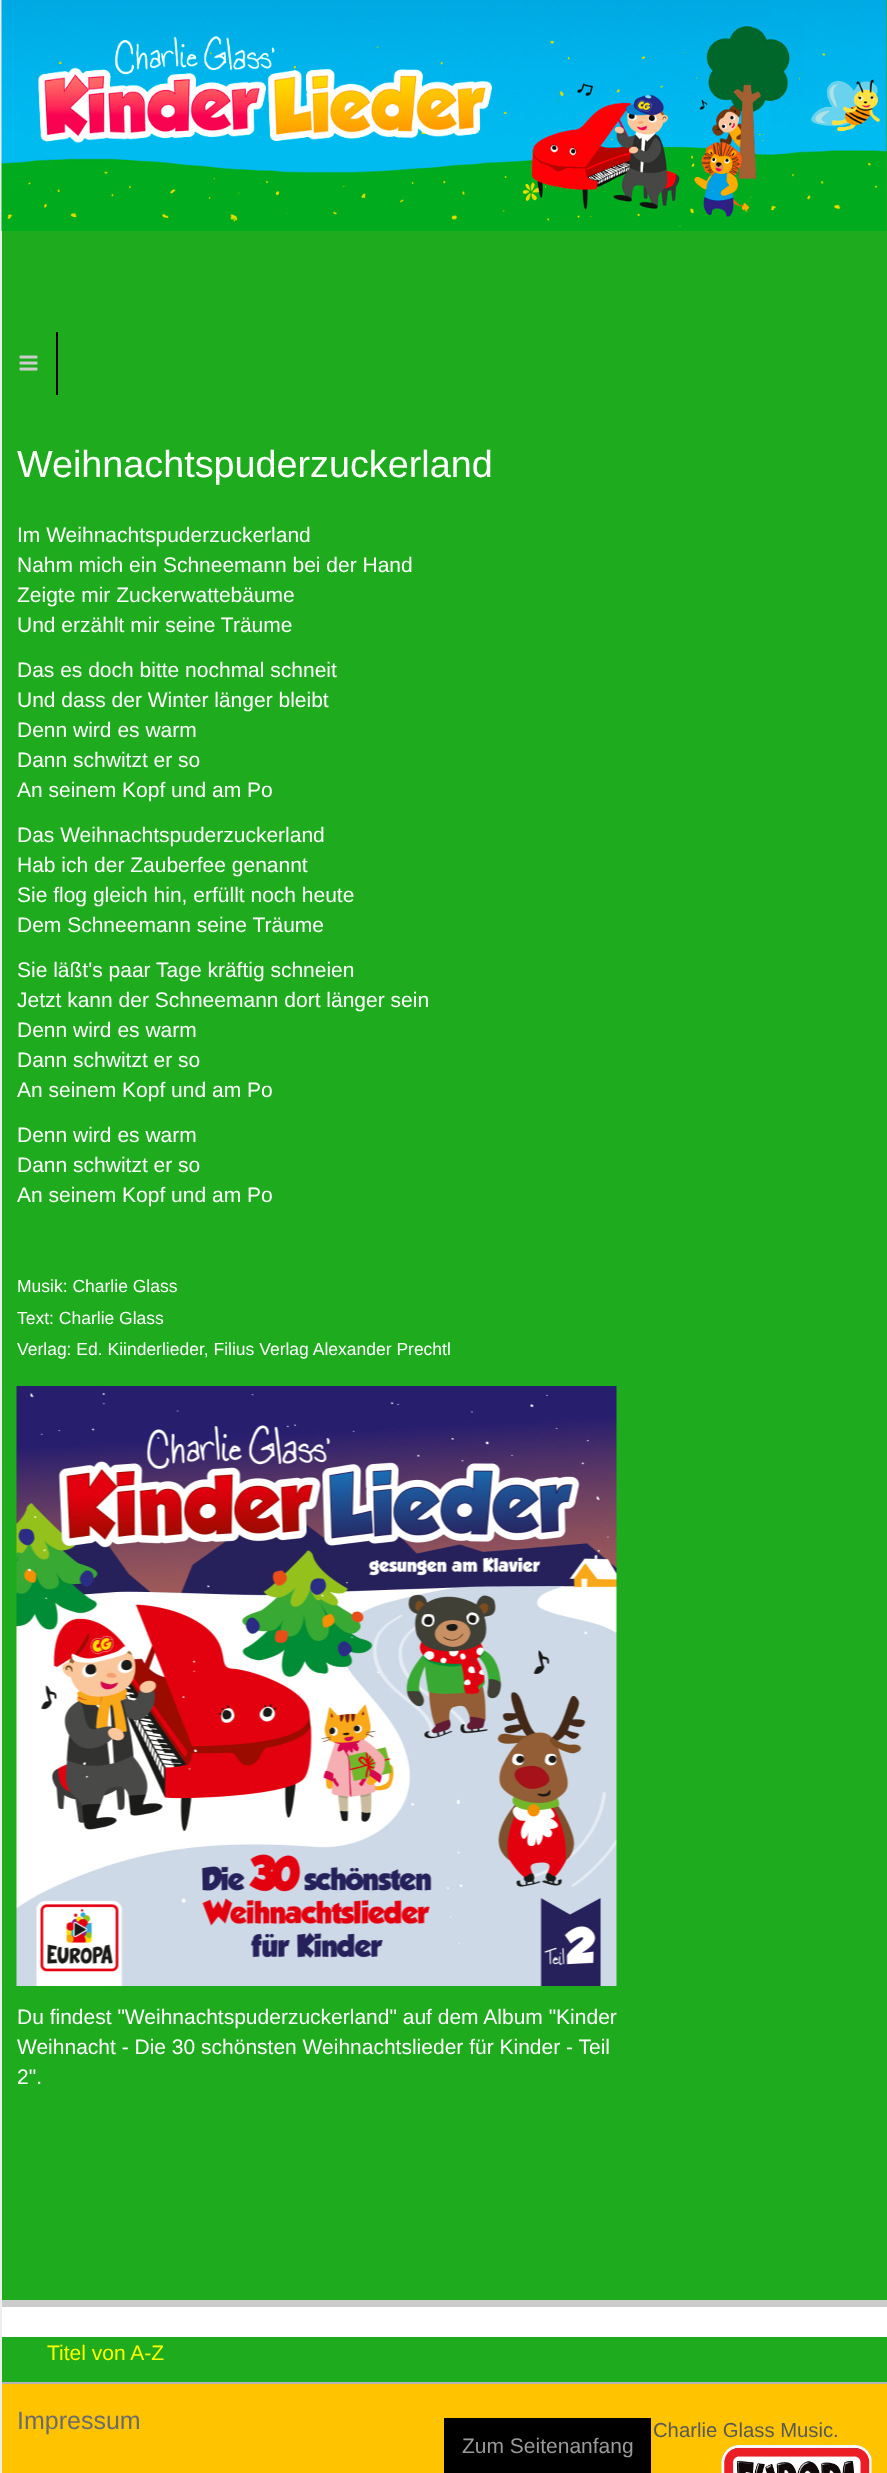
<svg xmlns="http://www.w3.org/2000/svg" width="887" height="2473">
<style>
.a{font:37.75px Liberation Sans;fill:#fff}
.b{font:21px Liberation Sans;fill:#fff}
.c{font:17.5px Liberation Sans;fill:#fff}
.d{font:21px Liberation Sans;fill:#ff0}
.e{font:25px Liberation Sans;fill:#6b6b6b}
.f{font:20.25px Liberation Sans;fill:#595959}
.g{font:21px Liberation Sans;fill:#999}
</style>
<rect width="100%" height="100%" fill="#1eab1d"/>
<path fill="#eee" d="M0 0h2v2473H0z"/>
<image href="1.png" x="1" y="0" width="886" height="231"/>
<path fill="#000" d="M56 332h2v63H56z"/>
<image href="2.png" x="19" y="355" width="19" height="16"/>
<path fill="#fff" d="M2 2307h885v30H2z"/>
<path fill="#ccc" d="M2 2300h885v7H2z"/>
<image href="3.png" x="16" y="1386" width="601" height="600"/>
<path fill="#ffc300" d="M2 2384h885v89H2z"/>
<path fill="#b3b3b3" d="M2 2382h885v2H2z"/>
<image href="4.png" x="721" y="2445" width="151" height="28"/>
<path fill="#000" d="M444 2418h207v55H444z"/>
<text class="a" x="17" y="477">Weihnachtspuderzuckerland</text>
<text class="b" x="17" y="542">Im Weihnachtspuderzuckerland</text>
<text class="b" x="17" y="572">Nahm mich ein Schneemann bei der Hand</text>
<text class="b" x="17" y="602">Zeigte mir Zuckerwattebäume</text>
<text class="b" x="17" y="632">Und erzählt mir seine Träume</text>
<text class="b" x="17" y="677">Das es doch bitte nochmal schneit</text>
<text class="b" x="17" y="707">Und dass der Winter länger bleibt</text>
<text class="b" x="17" y="737">Denn wird es warm</text>
<text class="b" x="17" y="767">Dann schwitzt er so</text>
<text class="b" x="17" y="797">An seinem Kopf und am Po</text>
<text class="b" x="17" y="842">Das Weihnachtspuderzuckerland</text>
<text class="b" x="17" y="872">Hab ich der Zauberfee genannt</text>
<text class="b" x="17" y="902">Sie flog gleich hin, erfüllt noch heute</text>
<text class="b" x="17" y="932">Dem Schneemann seine Träume</text>
<text class="b" x="17" y="977">Sie läßt's paar Tage kräftig schneien</text>
<text class="b" x="17" y="1007">Jetzt kann der Schneemann dort länger sein</text>
<text class="b" x="17" y="1037">Denn wird es warm</text>
<text class="b" x="17" y="1067">Dann schwitzt er so</text>
<text class="b" x="17" y="1097">An seinem Kopf und am Po</text>
<text class="b" x="17" y="1142">Denn wird es warm</text>
<text class="b" x="17" y="1172">Dann schwitzt er so</text>
<text class="b" x="17" y="1202">An seinem Kopf und am Po</text>
<text class="c" x="17" y="1292">Musik: Charlie Glass</text>
<text class="c" x="17" y="1324">Text: Charlie Glass</text>
<text class="c" x="17" y="1355">Verlag: Ed. Kiinderlieder, Filius Verlag Alexander Prechtl</text>
<text class="b" x="17" y="2024">Du findest "Weihnachtspuderzuckerland" auf dem Album "Kinder</text>
<text class="b" x="17" y="2054">Weihnacht - Die 30 schönsten Weihnachtslieder für Kinder - Teil</text>
<text class="b" x="17" y="2084">2".</text>
<text class="d" x="47" y="2360">Titel von A-Z</text>
<text class="e" x="17" y="2429">Impressum</text>
<text class="f" x="653" y="2437">Charlie Glass Music.</text>
<text class="g" x="462" y="2453">Zum Seitenanfang</text>
</svg>
